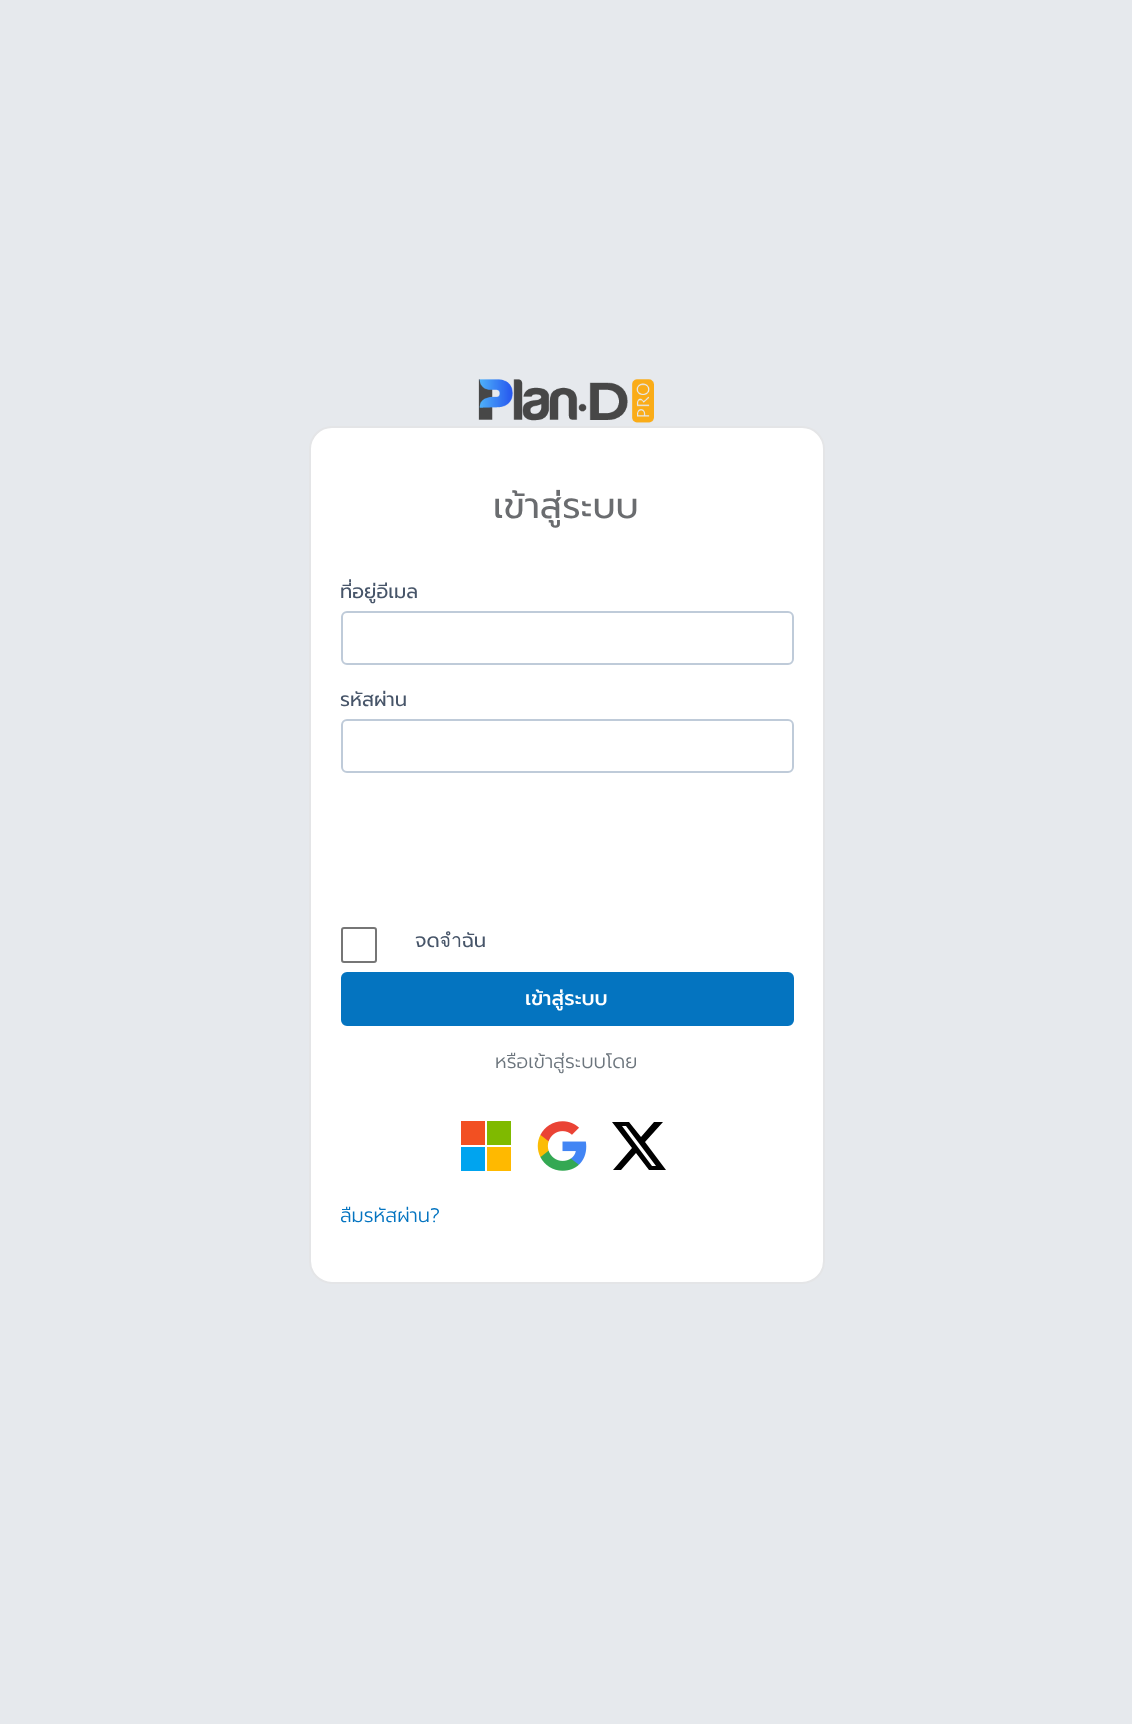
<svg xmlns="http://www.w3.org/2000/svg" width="1132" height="1724">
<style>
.a{font:36px Prompt;fill:#6a6c6f}
.b{font:19.5px Prompt;fill:#475569}
.c{font:500 20px Prompt;fill:#fff}
.d{font:300 19.5px Prompt;fill:#6c757d}
.e{font:300 19.5px Prompt;fill:#0474c0}
</style>
<rect width="100%" height="100%" fill="#e6e9ed"/>
<image href="1.png" x="478" y="379" width="176" height="44"/>
<rect fill="#fff" stroke="#e4e5e7" stroke-width="2" x="310" y="427" width="514" height="856" rx="22"/>
<rect fill="none" stroke="#bfcbd9" stroke-width="2" x="342" y="612" width="451" height="52" rx="5"/>
<rect fill="none" stroke="#bfcbd9" stroke-width="2" x="342" y="720" width="451" height="52" rx="5"/>
<rect fill="none" stroke="#e2e8f0" stroke-width="2" x="342" y="928" width="23" height="24" rx="4"/>
<rect fill="#fff" stroke="#767676" stroke-width="2" x="342" y="928" width="34" height="34" rx="2"/>
<rect fill="#0474c0" stroke="#0474c0" stroke-width="2" x="342" y="973" width="451" height="52" rx="5"/>
<path fill="#f25022" d="M461 1121h24v24H461z"/>
<path fill="#7fba00" d="M487 1121h24v24H487z"/>
<path fill="#00a4ef" d="M461 1147h24v24H461z"/>
<path fill="#ffb900" d="M487 1147h24v24H487z"/>
<image href="2.png" x="537" y="1121" width="50" height="50"/>
<path fill="#000" d="M654 1122h9l-18 20l21 28h-17l-13-17l-15 17h-8l19-22l-20-26h17l12 15zm-2 44h4l-30-40h-4z"/>
<text class="a" x="493" y="518">เข้าสู่ระบบ</text>
<text class="b" x="340" y="598">ที่อยู่อีเมล</text>
<text class="b" x="340" y="706">รหัสผ่าน</text>
<text class="b" x="415" y="947">จดจำฉัน</text>
<text class="c" x="525" y="1005">เข้าสู่ระบบ</text>
<text class="d" x="495" y="1068">หรือเข้าสู่ระบบโดย</text>
<text class="e" x="340" y="1222">ลืมรหัสผ่าน?</text>
</svg>
